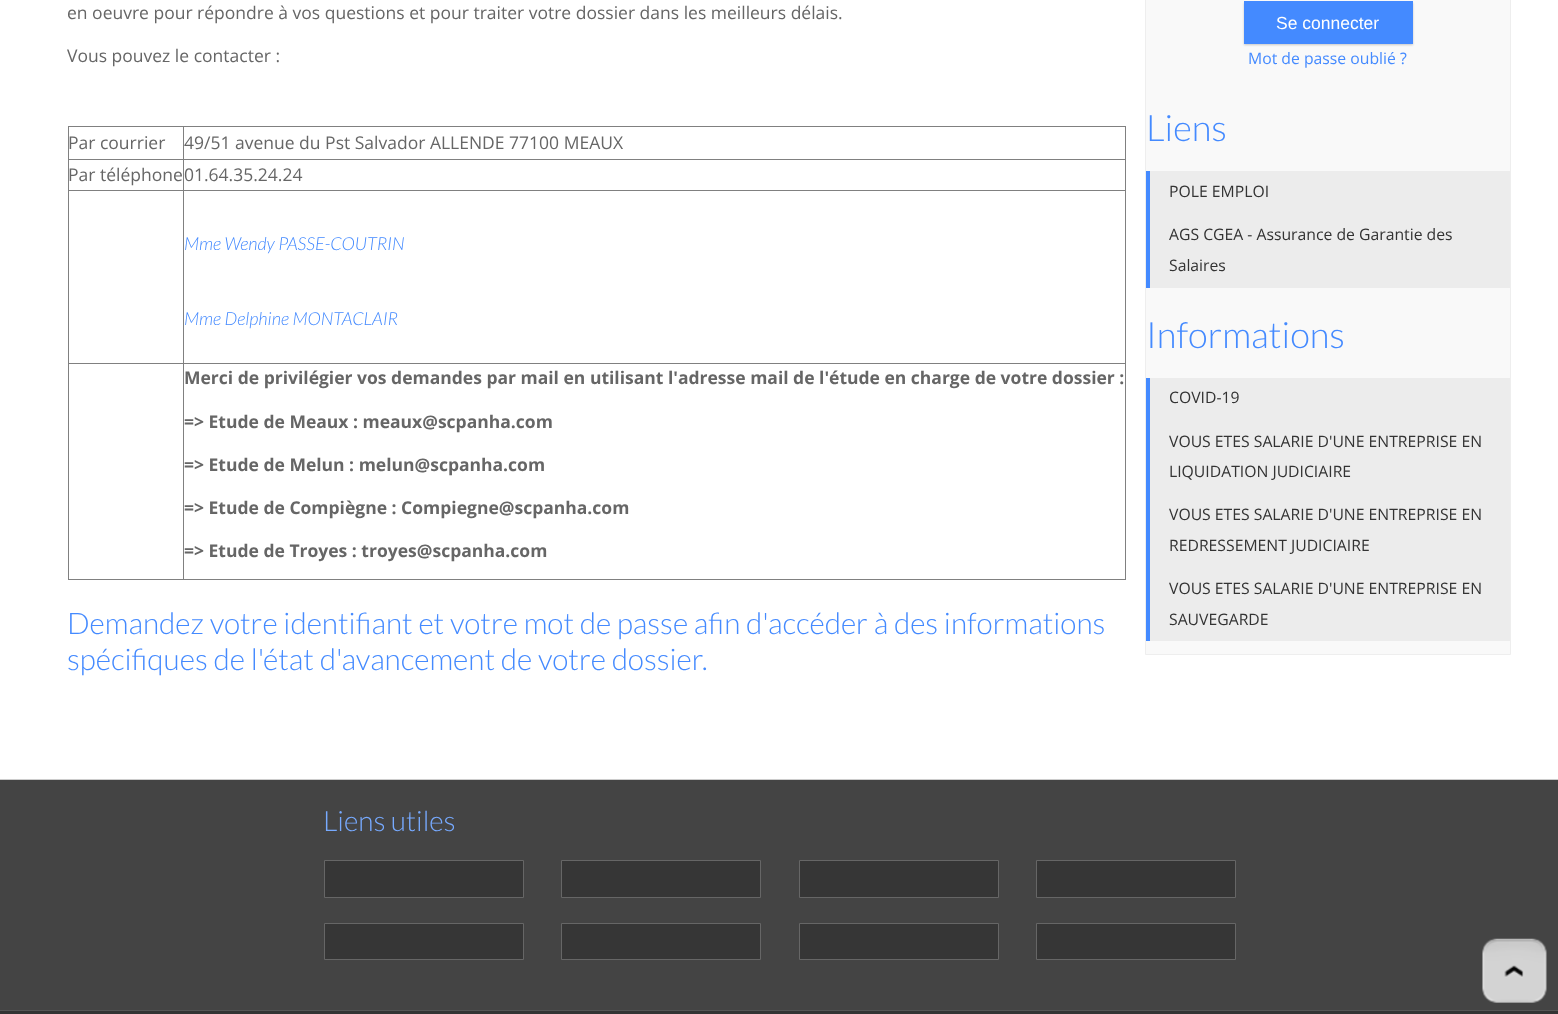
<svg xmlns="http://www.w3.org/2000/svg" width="1558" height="1014">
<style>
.a{font:17.5px Open Sans;fill:#666}
.b{font:italic 300 18px Lato;fill:#448aff}
.c{font:bold 17.5px Open Sans;fill:#666}
.d{font:300 29.75px Lato;fill:#448aff}
.e{font:17.5px Liberation Sans;fill:#fff}
.f{font:15.75px Open Sans;fill:#448aff}
.g{font:300 36.25px Lato;fill:#448aff}
.h{font:15.75px Open Sans;fill:#333}
.i{font:300 28px Lato;fill:#7af}
</style>
<rect width="100%" height="100%" fill="#fff"/>
<path fill="#808080" d="M68 126h1058v1H68z"/>
<path fill="#808080" d="M1125 126h1v454H1125z"/>
<path fill="#808080" d="M68 579h1058v1H68z"/>
<path fill="#808080" d="M68 126h1v454H68z"/>
<path fill="#808080" d="M183 159h943v1H183z"/>
<path fill="#808080" d="M183 190h943v1H183z"/>
<path fill="#808080" d="M183 363h943v1H183z"/>
<path fill="#808080" d="M183 363h1v217H183z"/>
<path fill="#808080" d="M68 363h116v1H68z"/>
<path fill="#808080" d="M183 190h1v174H183z"/>
<path fill="#808080" d="M68 190h116v1H68z"/>
<path fill="#808080" d="M183 159h1v32H183z"/>
<path fill="#808080" d="M68 159h116v1H68z"/>
<path fill="#808080" d="M183 126h1v34H183z"/>
<path fill="#f9f9f9" stroke="#eee" d="M1145.5 -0.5h365v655H1145.5z"/>
<path fill="#00000033" filter="blur(1px)" d="M1244 3h169v42H1244z"/>
<path fill="#448aff" d="M1244 1h169v43H1244z"/>
<path fill="#ececec" d="M1150 171h360v117H1150z"/>
<path fill="#448aff" d="M1146 171h4v117H1146z"/>
<path fill="#ececec" d="M1150 378h360v263H1150z"/>
<path fill="#448aff" d="M1146 378h4v263H1146z"/>
<path fill="#0000004d" filter="blur(0.5px)" d="M0 779h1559v231H0z"/>
<path fill="#444" d="M0 780h1558v230H0z"/>
<path fill="#ccc" d="M0 779h1558v1H0z"/>
<path fill="#363636" stroke="#666" d="M324.5 860.5h199v37H324.5z"/>
<path fill="#363636" stroke="#666" d="M561.5 860.5h199v37H561.5z"/>
<path fill="#363636" stroke="#666" d="M799.5 860.5h199v37H799.5z"/>
<path fill="#363636" stroke="#666" d="M1036.5 860.5h199v37H1036.5z"/>
<path fill="#363636" stroke="#666" d="M324.5 923.5h199v36H324.5z"/>
<path fill="#363636" stroke="#666" d="M561.5 923.5h199v36H561.5z"/>
<path fill="#363636" stroke="#666" d="M799.5 923.5h199v36H799.5z"/>
<path fill="#363636" stroke="#666" d="M1036.5 923.5h199v36H1036.5z"/>
<path fill="#333" d="M0 1011h1558v3H0z"/>
<path fill="#555" d="M0 1010h1558v1H0z"/>
<image href="1.png" x="1482" y="938" width="65" height="65"/>
<text class="a" x="67" y="19">en oeuvre pour répondre à vos questions et pour traiter votre dossier dans les meilleurs délais.</text>
<text class="a" x="67" y="62">Vous pouvez le contacter :</text>
<text class="a" x="68" y="149">Par courrier</text>
<text class="a" x="184" y="149">49/51 avenue du Pst Salvador ALLENDE 77100 MEAUX</text>
<text class="a" x="68" y="181">Par téléphone</text>
<text class="a" x="184" y="181">01.64.35.24.24</text>
<text class="b" x="184" y="250">Mme Wendy PASSE-COUTRIN</text>
<text class="b" x="184" y="325">Mme Delphine MONTACLAIR</text>
<text class="c" x="184" y="384">Merci de privilégier vos demandes par mail en utilisant l'adresse mail de l'étude en charge de votre dossier :</text>
<text class="c" x="184" y="428">=&gt; Etude de Meaux : meaux@scpanha.com</text>
<text class="c" x="184" y="471">=&gt; Etude de Melun : melun@scpanha.com</text>
<text class="c" x="184" y="514">=&gt; Etude de Compiègne : Compiegne@scpanha.com</text>
<text class="c" x="184" y="557">=&gt; Etude de Troyes : troyes@scpanha.com</text>
<text class="d" x="67" y="634">Demandez votre identifiant et votre mot de passe afin d'accéder à des informations</text>
<text class="d" x="67" y="670">spécifiques de l'état d'avancement de votre dossier.</text>
<text class="e" x="1276" y="29">Se connecter</text>
<text class="f" x="1248" y="64">Mot de passe oublié ?</text>
<text class="g" x="1146" y="141">Liens</text>
<text class="h" x="1169" y="197">POLE EMPLOI</text>
<text class="h" x="1169" y="240">AGS CGEA - Assurance de Garantie des</text>
<text class="h" x="1169" y="271">Salaires</text>
<text class="g" x="1146" y="348">Informations</text>
<text class="h" x="1169" y="403">COVID-19</text>
<text class="h" x="1169" y="447">VOUS ETES SALARIE D'UNE ENTREPRISE EN</text>
<text class="h" x="1169" y="477">LIQUIDATION JUDICIAIRE</text>
<text class="h" x="1169" y="520">VOUS ETES SALARIE D'UNE ENTREPRISE EN</text>
<text class="h" x="1169" y="551">REDRESSEMENT JUDICIAIRE</text>
<text class="h" x="1169" y="594">VOUS ETES SALARIE D'UNE ENTREPRISE EN</text>
<text class="h" x="1169" y="625">SAUVEGARDE</text>
<text class="i" x="323" y="831">Liens utiles</text>
</svg>
